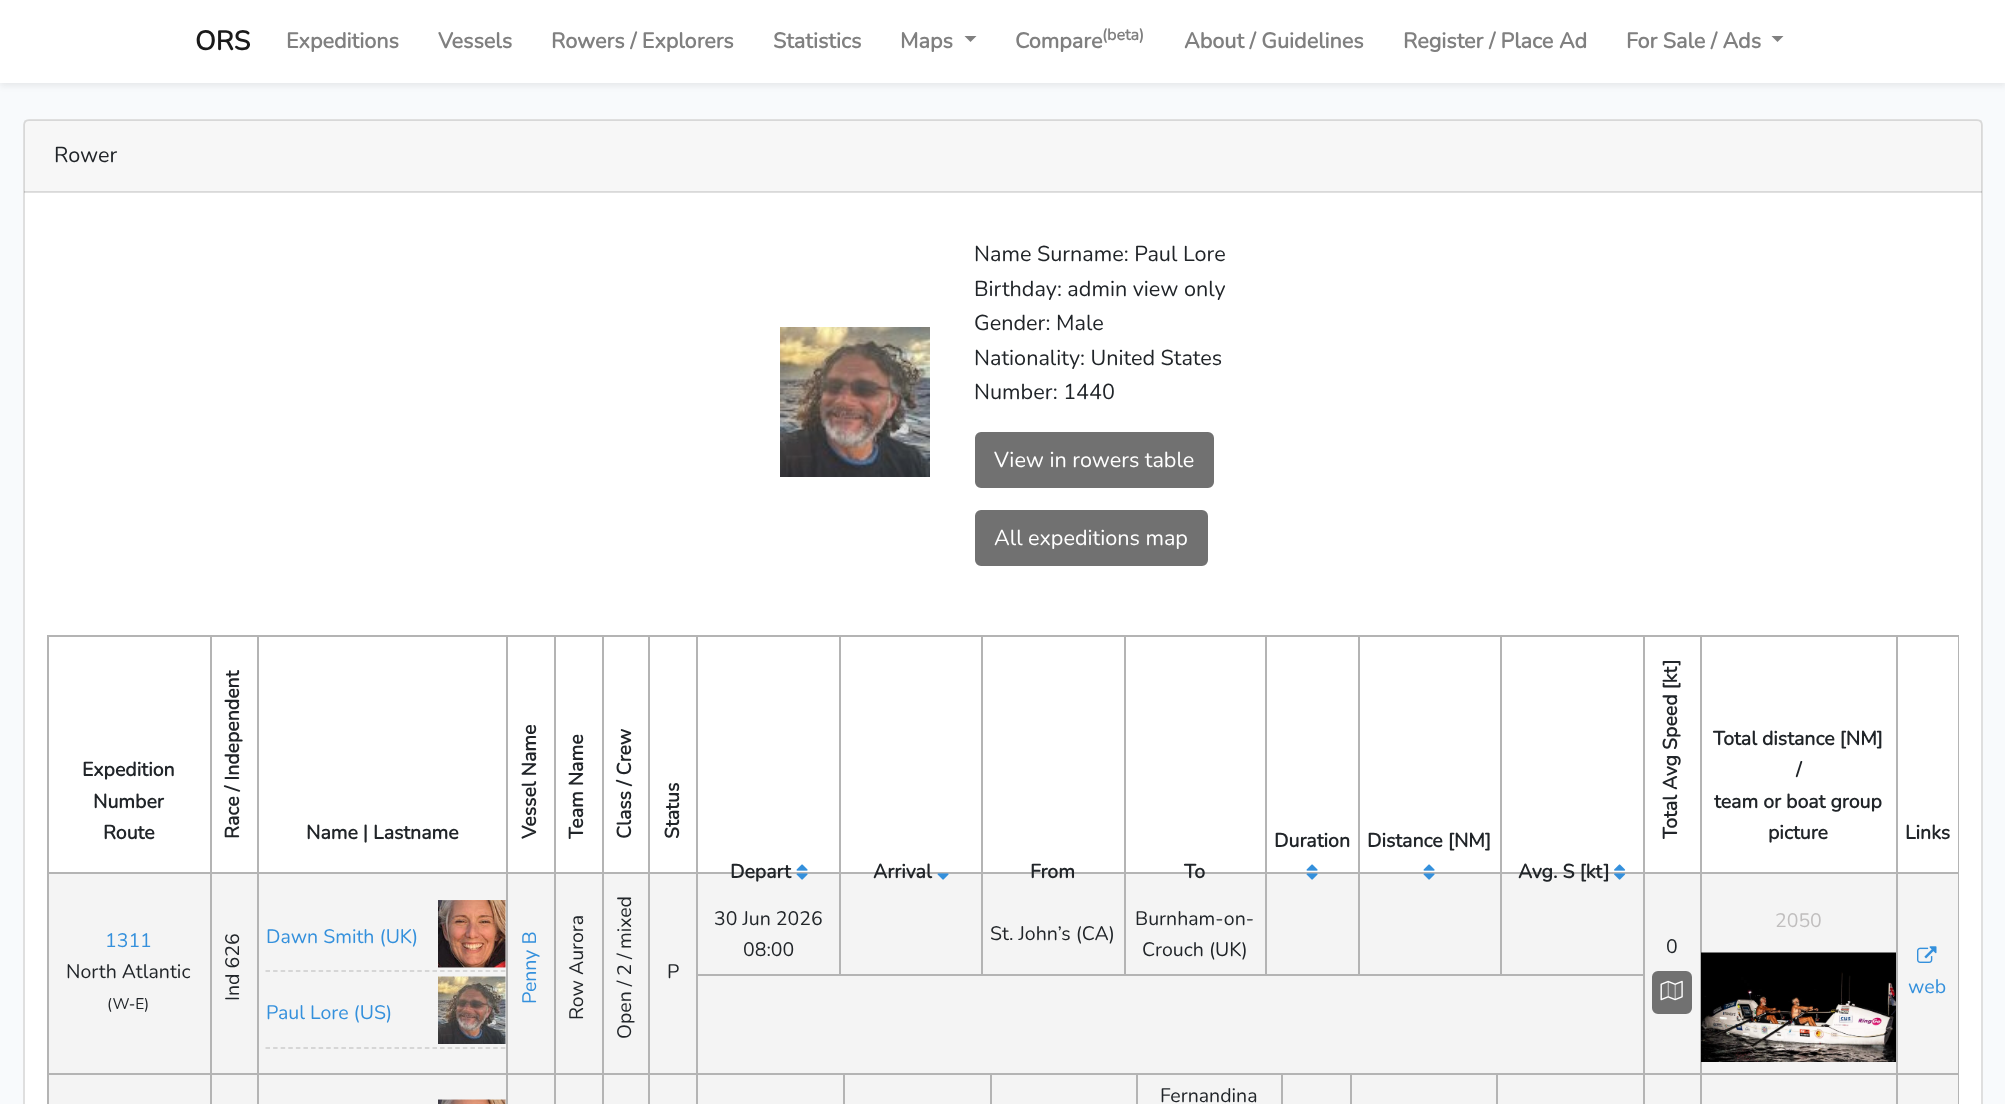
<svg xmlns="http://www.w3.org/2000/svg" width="2005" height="1104">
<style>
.a{font:bold 27px Nunito;fill:#1a1a1a}
.b{font:bold 21.6px Nunito;fill:#808080}
.c{font:bold 16px Nunito;fill:#808080}
.d{font:200 21.6px Nunito;fill:#212529}
.e{font:200 21.6px Nunito;fill:#fff}
.f{font:bold 19.5px Nunito;fill:#212529}
.g{font:200 19.5px Nunito;fill:#3490dc}
.h{font:200 19.5px Nunito;fill:#212529}
.i{font:200 15.5px Nunito;fill:#212529}
.j{font:200 19.5px Nunito;fill:#c0bebe}
</style>
<rect width="100%" height="100%" fill="#f8fafc"/>
<path fill="#00000012" filter="blur(3px)" d="M0 3h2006v83H0z"/>
<path fill="#fff" d="M0 0h2005v83H0z"/>
<path fill="#808080" d="M964.5 36h12l-6 6z"/>
<path fill="#808080" d="M1771.5 36h12l-6 6z"/>
<rect fill="#fff" stroke="#dfdfdf" stroke-width="2" x="24" y="120" width="1958" height="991" rx="5"/>
<path fill="#00000008" d="M24 120h1958v72H24z"/>
<path fill="#0000001f" d="M24 191h1958v2H24z"/>
<image href="1.png" x="780" y="327" width="150" height="150"/>
<rect fill="#717171" stroke="#717171" stroke-width="2" x="976" y="433" width="237" height="54" rx="5"/>
<rect fill="#717171" stroke="#717171" stroke-width="2" x="976" y="511" width="231" height="54" rx="5"/>
<path fill="#b4b4b4" d="M47 635h1912v2H47z"/>
<path fill="#b4b4b4" d="M1958 635h1v469H1958z"/>
<path fill="#b4b4b4" d="M47 635h2v469H47z"/>
<path fill="#b4b4b4" d="M1896 872h63v2H1896z"/>
<path fill="#f4f4f4" d="M49 874h1909v199H49z"/>
<path fill="#b4b4b4" d="M1896 1073h63v2H1896z"/>
<path fill="#f4f4f4" d="M49 1075h1909v29H49z"/>
<path fill="#b4b4b4" d="M1896 1073h2v31H1896z"/>
<path fill="#b4b4b4" d="M1700 1073h198v2H1700z"/>
<path fill="#b4b4b4" d="M1896 872h2v202H1896z"/>
<path fill="#b4b4b4" d="M1700 872h198v2H1700z"/>
<path fill="#b4b4b4" d="M1700 1073h2v31H1700z"/>
<path fill="#b4b4b4" d="M1643 1073h58v2H1643z"/>
<path fill="#b4b4b4" d="M1700 872h2v202H1700z"/>
<path fill="#b4b4b4" d="M1643 872h58v2H1643z"/>
<path fill="#b4b4b4" d="M1643 1073h2v31H1643z"/>
<path fill="#b4b4b4" d="M696 1073h948v2H696z"/>
<path fill="#b4b4b4" d="M1643 872h2v202H1643z"/>
<path fill="#b4b4b4" d="M696 872h948v2H696z"/>
<path fill="#b4b4b4" d="M696 1073h2v31H696z"/>
<path fill="#b4b4b4" d="M648 1073h50v2H648z"/>
<path fill="#b4b4b4" d="M696 872h2v202H696z"/>
<path fill="#b4b4b4" d="M648 872h50v2H648z"/>
<path fill="#b4b4b4" d="M648 1073h2v31H648z"/>
<path fill="#b4b4b4" d="M602 1073h48v2H602z"/>
<path fill="#b4b4b4" d="M648 872h2v202H648z"/>
<path fill="#b4b4b4" d="M602 872h48v2H602z"/>
<path fill="#b4b4b4" d="M602 1073h2v31H602z"/>
<path fill="#b4b4b4" d="M554 1073h49v2H554z"/>
<path fill="#b4b4b4" d="M602 872h2v202H602z"/>
<path fill="#b4b4b4" d="M554 872h49v2H554z"/>
<path fill="#b4b4b4" d="M554 1073h2v31H554z"/>
<path fill="#b4b4b4" d="M506 1073h49v2H506z"/>
<path fill="#b4b4b4" d="M554 872h2v202H554z"/>
<path fill="#b4b4b4" d="M506 872h49v2H506z"/>
<path fill="#b4b4b4" d="M506 1073h2v31H506z"/>
<path fill="#b4b4b4" d="M257 1073h250v2H257z"/>
<path fill="#b4b4b4" d="M506 872h2v202H506z"/>
<path fill="#b4b4b4" d="M257 872h250v2H257z"/>
<path fill="#b4b4b4" d="M257 1073h2v31H257z"/>
<path fill="#b4b4b4" d="M210 1073h48v2H210z"/>
<path fill="#b4b4b4" d="M257 872h2v202H257z"/>
<path fill="#b4b4b4" d="M210 872h48v2H210z"/>
<path fill="#b4b4b4" d="M210 1073h2v31H210z"/>
<path fill="#b4b4b4" d="M47 1073h165v2H47z"/>
<path fill="#b4b4b4" d="M210 872h2v202H210z"/>
<path fill="#b4b4b4" d="M47 872h165v2H47z"/>
<path fill="#b4b4b4" d="M210 635h2v238H210z"/>
<path fill="#b4b4b4" d="M257 635h2v238H257z"/>
<path fill="#b4b4b4" d="M506 635h2v238H506z"/>
<path fill="#b4b4b4" d="M554 635h2v238H554z"/>
<path fill="#b4b4b4" d="M602 635h2v238H602z"/>
<path fill="#b4b4b4" d="M648 635h2v238H648z"/>
<path fill="#b4b4b4" d="M696 635h2v238H696z"/>
<path fill="#b4b4b4" d="M1643 635h2v238H1643z"/>
<path fill="#b4b4b4" d="M1700 635h2v238H1700z"/>
<path fill="#b4b4b4" d="M1896 635h2v238H1896z"/>
<path fill="none" stroke="#ccc" stroke-width="1.5" stroke-dasharray="4.5 3.09" d="M265.5 971h240"/>
<image href="2.png" x="438" y="900" width="68" height="68"/>
<path fill="none" stroke="#ccc" stroke-width="1.5" stroke-dasharray="4.5 3.09" d="M265.5 1048h240"/>
<image href="3.png" x="438" y="976" width="68" height="68"/>
<image href="4.png" x="1306" y="864" width="12" height="16"/>
<image href="4.png" x="1423" y="864" width="12" height="16"/>
<image href="4.png" x="796" y="864" width="12" height="16"/>
<image href="5.png" x="937" y="873" width="12" height="7"/>
<image href="6.png" x="1614" y="864" width="12" height="16"/>
<path fill="#b4b4b4" d="M1500 974h144v2H1500z"/>
<path fill="#b4b4b4" d="M1500 636h2v339H1500z"/>
<path fill="#b4b4b4" d="M1358 974h144v2H1358z"/>
<path fill="#b4b4b4" d="M1358 636h2v339H1358z"/>
<path fill="#b4b4b4" d="M1265 974h94v2H1265z"/>
<path fill="#b4b4b4" d="M1265 636h2v339H1265z"/>
<path fill="#b4b4b4" d="M1124 974h142v2H1124z"/>
<path fill="#b4b4b4" d="M1124 636h2v339H1124z"/>
<path fill="#b4b4b4" d="M981 974h144v2H981z"/>
<path fill="#b4b4b4" d="M981 636h2v339H981z"/>
<path fill="#b4b4b4" d="M839 974h144v2H839z"/>
<path fill="#b4b4b4" d="M839 636h2v339H839z"/>
<path fill="#b4b4b4" d="M698 974h142v2H698z"/>
<rect fill="#717171" stroke="#717171" stroke-width="2" x="1653" y="972" width="38" height="41" rx="5"/>
<image href="7.png" x="1660" y="980" width="23" height="21"/>
<image href="8.png" x="1701" y="952" width="195" height="110"/>
<image href="9.png" x="1917" y="946" width="20" height="17"/>
<image href="10.png" x="438" y="1099" width="68" height="5"/>
<path fill="#b4b4b4" d="M843 1073h2v31H843z"/>
<path fill="#b4b4b4" d="M990 1073h2v31H990z"/>
<path fill="#b4b4b4" d="M1136 1073h2v31H1136z"/>
<path fill="#b4b4b4" d="M1281 1073h2v31H1281z"/>
<path fill="#b4b4b4" d="M1350 1073h2v31H1350z"/>
<path fill="#b4b4b4" d="M1496 1073h2v31H1496z"/>
<text class="a" x="195" y="50">ORS</text>
<text class="b" x="286" y="48">Expeditions</text>
<text class="b" x="438" y="48">Vessels</text>
<text class="b" x="551" y="48">Rowers / Explorers</text>
<text class="b" x="773" y="48">Statistics</text>
<text class="b" x="900" y="48">Maps</text>
<text class="b" x="1015" y="48">Compare</text>
<text class="c" x="1102" y="40">(beta)</text>
<text class="b" x="1184" y="48">About / Guidelines</text>
<text class="b" x="1403" y="48">Register / Place Ad</text>
<text class="b" x="1626" y="48">For Sale / Ads</text>
<text class="d" x="54" y="162">Rower</text>
<text class="d" x="974" y="261">Name Surname: Paul Lore</text>
<text class="d" x="974" y="296">Birthday: admin view only</text>
<text class="d" x="974" y="330">Gender: Male</text>
<text class="d" x="974" y="365">Nationality: United States</text>
<text class="d" x="974" y="399">Number: 1440</text>
<text class="e" x="994" y="467">View in rowers table</text>
<text class="e" x="994" y="545">All expeditions map</text>
<text class="f" x="82" y="776">Expedition</text>
<text class="f" x="93" y="808">Number</text>
<text class="f" x="103" y="839">Route</text>
<text class="f" x="239" y="839" transform="rotate(-90 239 839)">Race / Independent</text>
<text class="f" x="306" y="839">Name | Lastname</text>
<text class="f" x="536" y="839" transform="rotate(-90 536 839)">Vessel Name</text>
<text class="f" x="583" y="839" transform="rotate(-90 583 839)">Team Name</text>
<text class="f" x="631" y="839" transform="rotate(-90 631 839)">Class / Crew</text>
<text class="f" x="679" y="839" transform="rotate(-90 679 839)">Status</text>
<text class="f" x="1677" y="839" transform="rotate(-90 1677 839)">Total Avg Speed [kt]</text>
<text class="f" x="1713" y="745">Total distance [NM]</text>
<text class="f" x="1796" y="776">/</text>
<text class="f" x="1714" y="808">team or boat group</text>
<text class="f" x="1768" y="839">picture</text>
<text class="f" x="1905" y="839">Links</text>
<text class="g" x="105" y="947">1311</text>
<text class="h" x="66" y="978">North Atlantic</text>
<text class="i" x="107" y="1009">(W-E)</text>
<text class="h" x="239" y="1001" transform="rotate(-90 239 1001)">Ind 626</text>
<text class="g" x="266" y="943">Dawn Smith (UK)</text>
<text class="g" x="266" y="1019">Paul Lore (US)</text>
<text class="g" x="536" y="1004" transform="rotate(-90 536 1004)">Penny B</text>
<text class="h" x="583" y="1020" transform="rotate(-90 583 1020)">Row Aurora</text>
<text class="h" x="631" y="949" transform="rotate(-90 631 949)">mixed</text>
<text class="h" x="631" y="1039" transform="rotate(-90 631 1039)">Open / 2 /</text>
<text class="f" x="1274" y="847">Duration</text>
<text class="f" x="1367" y="847">Distance [NM]</text>
<text class="f" x="730" y="878">Depart</text>
<text class="f" x="873" y="878">Arrival</text>
<text class="f" x="1030" y="878">From</text>
<text class="f" x="1184" y="878">To</text>
<text class="f" x="1518" y="878">Avg. S [kt]</text>
<text class="h" x="714" y="925">30 Jun 2026</text>
<text class="h" x="743" y="956">08:00</text>
<text class="h" x="990" y="940">St. John’s (CA)</text>
<text class="h" x="1135" y="925">Burnham-on-</text>
<text class="h" x="1142" y="956">Crouch (UK)</text>
<text class="h" x="1666" y="953">0</text>
<text class="j" x="1775" y="927">2050</text>
<text class="h" x="667" y="978">P</text>
<text class="g" x="1908" y="993">web</text>
<text class="h" x="1160" y="1102">Fernandina</text>
</svg>
